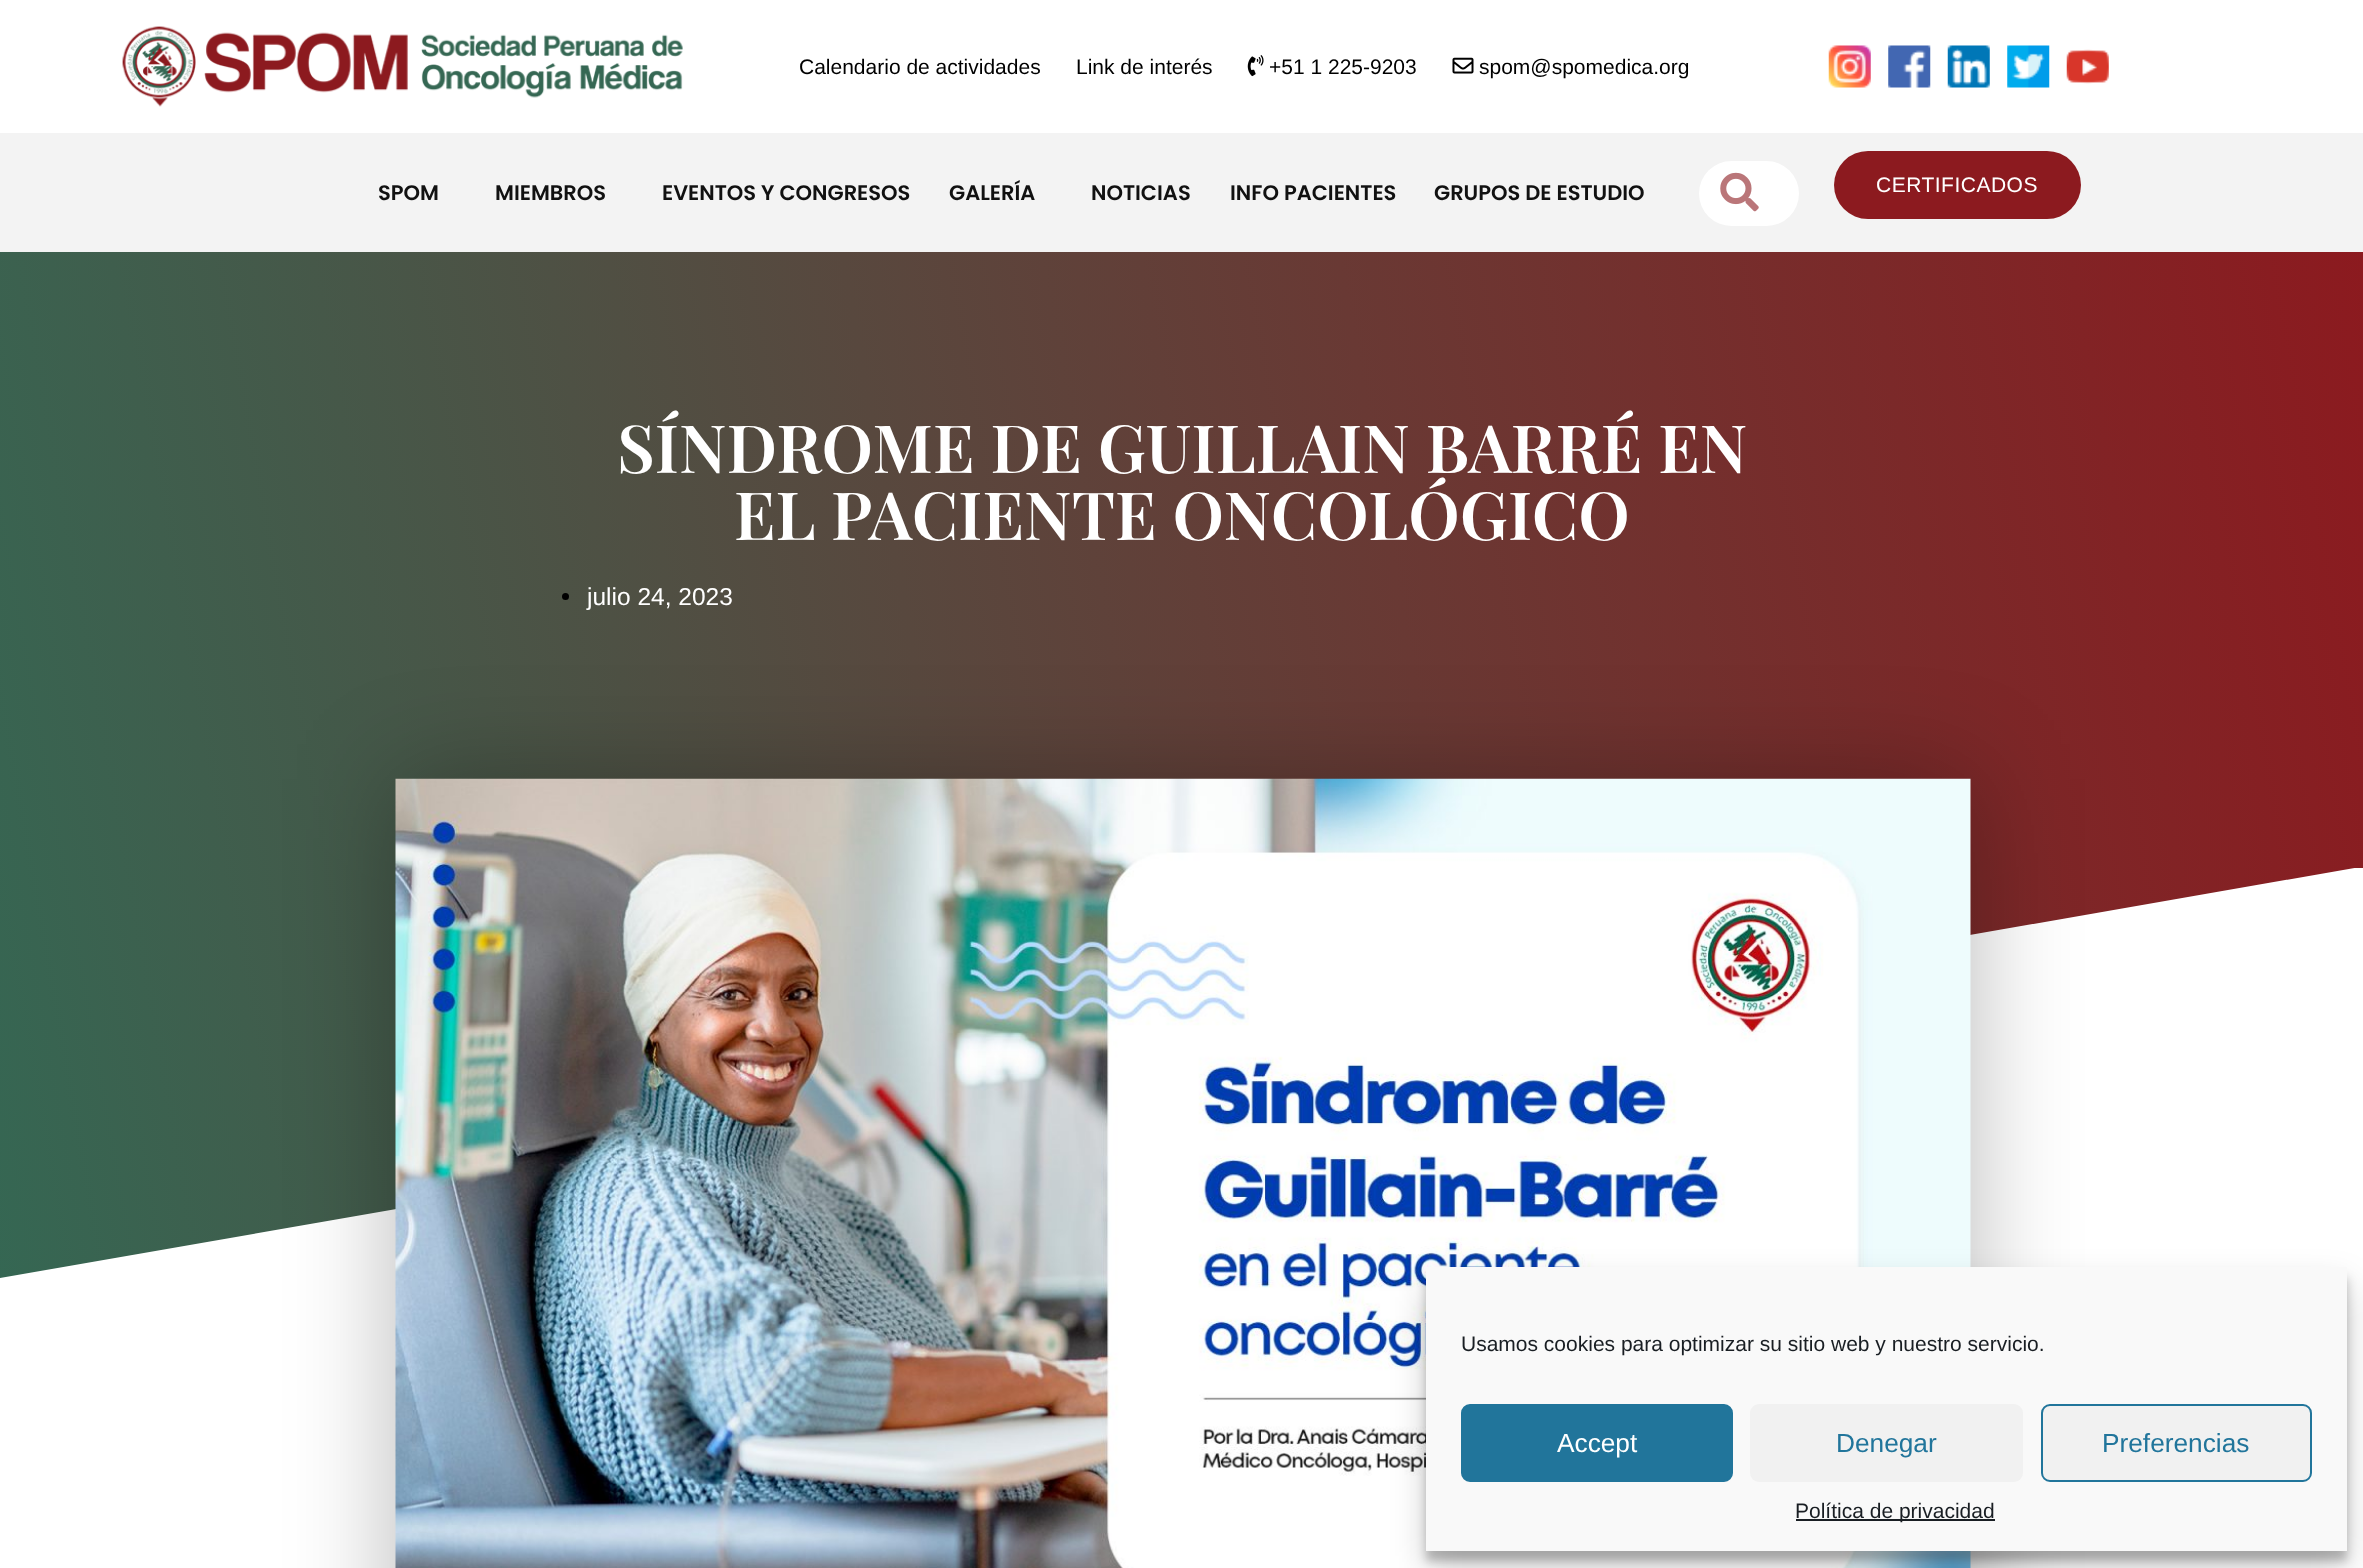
<svg xmlns="http://www.w3.org/2000/svg" width="2363" height="1568">
<style>
.a{font:21px Liberation Sans;fill:#000}
.b{font:600 21px Poppins;fill:#111}
.c{font:21px Liberation Sans;letter-spacing:0.5px;fill:#fff}
.d{font:600 66.5px Playfair Display;fill:#fff}
.e{font:24.5px Liberation Sans;fill:#fff}
.f{font:21px Liberation Sans;fill:#191e23}
.g{font:26.25px Liberation Sans;fill:#fff}
.h{font:26.25px Liberation Sans;fill:#21759b}
</style>
<defs>
<linearGradient id="g1" gradientUnits="userSpaceOnUse" x1="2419" y1="560" x2="-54" y2="996"><stop offset="0" stop-color="#8c1a1f"/><stop offset="1" stop-color="#356753"/></linearGradient>
<clipPath id="clip1"><path d="M0 868h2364v438H0z"/></clipPath>
</defs>
<rect width="100%" height="100%" fill="#fff"/>
<image href="1.png" x="122" y="26" width="561" height="81"/>
<image href="2.png" x="1247" y="55" width="17" height="22"/>
<image href="3.png" x="1452" y="57" width="22" height="17"/>
<image href="4.png" x="1828" y="45" width="43" height="43"/>
<image href="5.png" x="1888" y="45" width="43" height="43"/>
<image href="6.png" x="1947" y="45" width="43" height="43"/>
<image href="7.png" x="2007" y="45" width="43" height="43"/>
<image href="8.png" x="2066" y="49" width="43" height="35"/>
<path fill="#f3f3f3" d="M0 133h2363v119H0z"/>
<rect fill="#fff" x="1699" y="161" width="100" height="65" rx="32.5"/>
<image href="9.png" x="1720" y="172" width="39" height="40"/>
<rect fill="#8c1a1f" x="1834" y="151" width="247" height="68" rx="34"/>
<path fill="url(#g1)" d="M0 252h2363v1026H0z"/>
<circle fill="#000" cx="565.5" cy="596.5" r="3.5"/>
<g clip-path="url(#clip1)">
<path fill="#fff" d="M0 1278v26h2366v-438z"/>
</g>
<path fill="#00000047" filter="blur(52.5px)" d="M396 779h1575v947H396z"/>
<image href="10.png" x="395" y="778" width="1576" height="790"/>
<path fill="#0000003b" filter="blur(5px)" d="M1426 1278h921v283H1426z"/>
<path fill="#00000030" filter="blur(17.5px)" d="M1426 1285h921v283H1426z"/>
<path fill="#f9f9f9" d="M1426 1267h921v284H1426z"/>
<rect fill="#21759b" stroke="#21759b" stroke-width="2" x="1462" y="1405" width="270" height="76" rx="8"/>
<rect fill="#f1f1f1" x="1750" y="1404" width="273" height="78" rx="9"/>
<rect fill="#f1f1f1" stroke="#21759b" stroke-width="2" x="2042" y="1405" width="269" height="76" rx="8"/>
<path fill="#191e23" d="M1796 1519h199v2H1796z"/>
<text class="a" x="799" y="74">Calendario de actividades</text>
<text class="a" x="1076" y="74">Link de interés</text>
<text class="a" x="1269" y="74">+51 1 225-9203</text>
<text class="a" x="1479" y="74">spom@spomedica.org</text>
<text class="b" x="378" y="200">SPOM</text>
<text class="b" x="495" y="200">MIEMBROS</text>
<text class="b" x="662" y="200">EVENTOS Y CONGRESOS</text>
<text class="b" x="949" y="200">GALERÍA</text>
<text class="b" x="1091" y="200">NOTICIAS</text>
<text class="b" x="1230" y="200">INFO PACIENTES</text>
<text class="b" x="1434" y="200">GRUPOS DE ESTUDIO</text>
<text class="c" x="1876" y="192">CERTIFICADOS</text>
<text class="d" x="617" y="473">SÍNDROME DE GUILLAIN BARRÉ EN</text>
<text class="d" x="734" y="540">EL PACIENTE ONCOLÓGICO</text>
<text class="e" x="587" y="605">julio 24, 2023</text>
<text class="f" x="1461" y="1351">Usamos cookies para optimizar su sitio web y nuestro servicio.</text>
<text class="g" x="1557" y="1452">Accept</text>
<text class="h" x="1836" y="1452">Denegar</text>
<text class="h" x="2102" y="1452">Preferencias</text>
<text class="f" x="1795" y="1518">Política de privacidad</text>
</svg>
